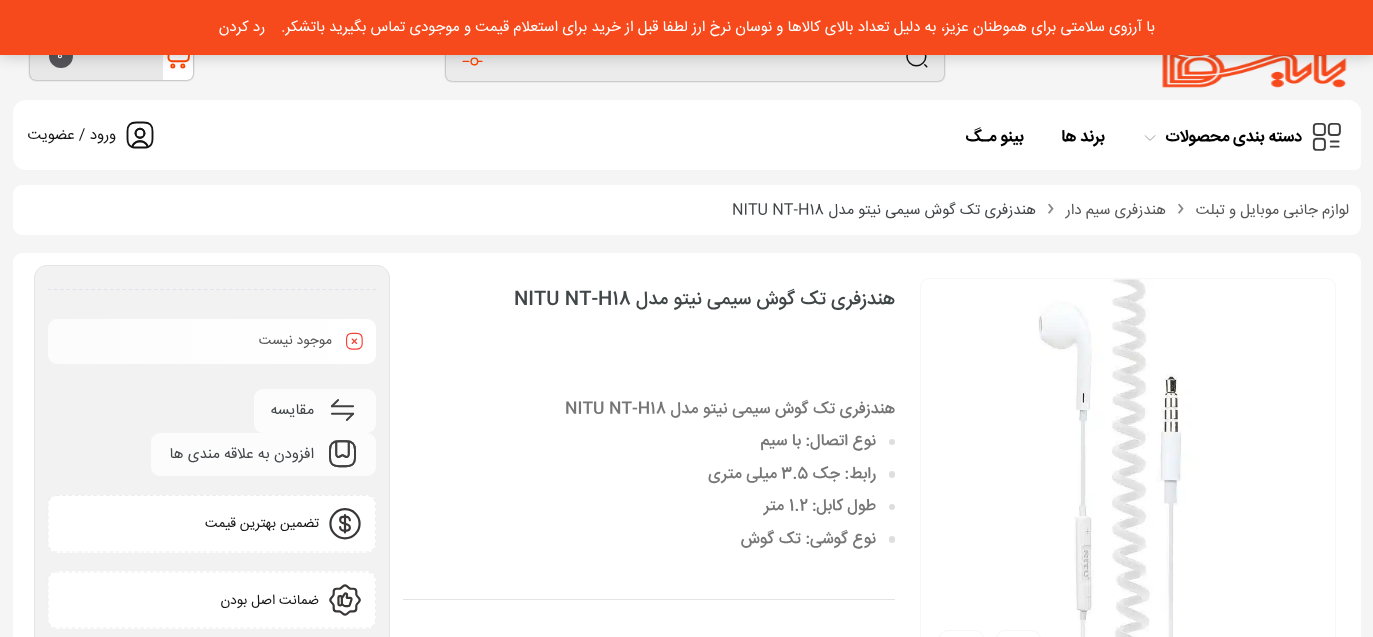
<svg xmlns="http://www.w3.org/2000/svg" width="1373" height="637">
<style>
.a{font:12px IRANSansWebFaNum;fill:#fff}
.b{font:15px IRANSansWebFaNum;direction:rtl;fill:#fff}
.c{font:bold 16.25px IRANSansWebFaNum;direction:rtl;fill:#000}
.d{font:15px IRANSansWebFaNum;direction:rtl;fill:#151515}
.e{font:15px IRANSansWebFaNum;direction:rtl;fill:#555}
.f{font:24px Noto Sans;fill:#888}
.g{font:15px IRANSansWebFaNum;direction:rtl;fill:#414648}
.h{font:15px IRANSansWebFaNum;fill:#414648}
.i{font:500 18.75px IRANSansWebFaNum;direction:rtl;fill:#414648}
.j{font:500 18.75px IRANSansWebFaNum;fill:#414648}
.k{font:500 16.25px IRANSansWebFaNum;direction:rtl;fill:#767676}
.l{font:500 16.25px IRANSansWebFaNum;fill:#767676}
.m{font:13.75px IRANSansWebFaNum;direction:rtl;fill:#555}
.n{font:13.75px IRANSansWebFaNum;direction:rtl;fill:#151515}
</style>
<defs>
<linearGradient id="g1" gradientUnits="userSpaceOnUse" x1="48" y1="341" x2="376" y2="341"><stop offset="0" stop-color="#fcfcfc"/><stop offset="1" stop-color="#fff"/></linearGradient>
</defs>
<rect width="100%" height="100%" fill="#f6f5f5"/>
<image href="1.png" x="1162" y="55" width="185" height="33"/>
<rect fill="#00000080" filter="blur(1px)" x="446" y="33" width="498" height="48" rx="6"/>
<rect fill="#ebebeb" x="446" y="33" width="498" height="48" rx="6"/>
<image href="2.png" x="906" y="55" width="22" height="13"/>
<image href="3.png" x="462" y="57" width="21" height="9"/>
<rect fill="#00000080" filter="blur(1px)" x="30" y="33" width="163" height="47" rx="6"/>
<rect fill="#fff" x="30" y="33" width="163" height="47" rx="6"/>
<image href="4.png" x="167" y="55" width="23" height="14"/>
<path fill="#00000017" d="M36 33h127v47h-127c-3.5 0-6-2.5-6-6v-35c0-3.5 2.5-6 6-6z"/>
<circle fill="#55555a" cx="61" cy="56" r="12"/>
<path fill="#00000033" filter="blur(7.5px)" d="M0 1h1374v55H0z"/>
<rect fill="#fff" x="13" y="100" width="1348" height="70" rx="13"/>
<rect fill="#fff" x="1124" y="106" width="237" height="64" rx="6"/>
<image href="5.png" x="1312" y="123" width="29" height="28"/>
<image href="6.png" x="1144" y="134" width="12" height="7"/>
<image href="7.png" x="126" y="121" width="28" height="28"/>
<rect fill="#fff" x="13" y="185" width="1348" height="50" rx="9"/>
<rect fill="#fff" x="13" y="253" width="1348" height="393" rx="9"/>
<rect fill="none" stroke="#f7f7f7" x="920.5" y="278.5" width="415" height="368" rx="8.5"/>
<image href="8.png" x="1038" y="279" width="155" height="358"/>
<rect fill="none" stroke="#f7f7f7" x="996.5" y="630.5" width="44" height="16" rx="8.5"/>
<rect fill="none" stroke="#f7f7f7" x="939.5" y="630.5" width="44" height="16" rx="8.5"/>
<circle fill="#dedede" cx="892" cy="442" r="3"/>
<rect fill="#dedede" x="889" y="471" width="6" height="7" rx="3"/>
<circle fill="#dedede" cx="892" cy="507" r="3"/>
<rect fill="#dedede" x="889" y="536" width="6" height="7" rx="3"/>
<path fill="#e4e4e4" d="M403 599h492v1H403z"/>
<rect fill="#f2f2f2" stroke="#e4e4e4" x="34.5" y="265.5" width="355" height="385" rx="12.5"/>
<path fill="none" stroke="#dfe3e9" stroke-width="1.2" stroke-dasharray="3.75 2.5" d="M47.5 289.5h328.5"/>
<rect fill="url(#g1)" x="48" y="319" width="328" height="45" rx="9"/>
<image href="9.png" x="346" y="332" width="17" height="18"/>
<rect fill="#fcfcfc" x="254" y="389" width="122" height="44" rx="9"/>
<image href="10.png" x="330" y="399" width="24" height="22"/>
<rect fill="#fcfcfc" x="151" y="433" width="225" height="43" rx="9"/>
<image href="11.png" x="329" y="440" width="27" height="28"/>
<rect fill="#fff" x="48" y="495" width="328" height="58" rx="9"/>
<path fill="none" stroke="#eee" stroke-width="1.2" stroke-dasharray="3.75 2.5" d="M56 495.5h311.5c4.5 0 8 4 8 8.5v40c0 4-3.5 8-8 8h-311.5c-4 0-8-4-8-8v-40c0-4.5 4-8.5 8-8.5z"/>
<image href="12.png" x="329" y="508" width="32" height="32"/>
<rect fill="#fff" x="48" y="571" width="328" height="58" rx="9"/>
<path fill="none" stroke="#eee" stroke-width="1.2" stroke-dasharray="3.75 2.5" d="M56 572h311.5c4.5 0 8 3.5 8 8v40c0 4.5-3.5 8-8 8h-311.5c-4 0-8-3.5-8-8v-40c0-4.5 4-8 8-8z"/>
<image href="13.png" x="329" y="584" width="32" height="32"/>
<text class="a" x="57" y="59">0</text>
<path fill="#f64a1c" d="M0 0h1373v55H0z"/>
<text class="b" x="265" y="31">رد کردن</text>
<text class="b" x="1155" y="31">با آرزوی سلامتی برای هموطنان عزیز، به دلیل تعداد بالای کالاها و نوسان نرخ ارز لطفا قبل از خرید برای استعلام قیمت و موجودی تماس بگیرید باتشکر.</text>
<text class="c" x="1302" y="141">دسته بندی محصولات</text>
<text class="c" x="1105" y="141">برند ها</text>
<text class="c" x="1024" y="141">بینو مـگ</text>
<text class="d" x="116" y="139">ورود / عضویت</text>
<text class="e" x="1349" y="214">لوازم جانبی موبایل و تبلت</text>
<text class="f" x="1177" y="215">›</text>
<text class="e" x="1166" y="214">هندزفری سیم دار</text>
<text class="f" x="1047" y="215">›</text>
<text class="g" x="1036" y="214">هندزفری تک گوش سیمی نیتو مدل</text>
<text class="h" x="732" y="214">NITU NT-H18</text>
<text class="i" x="895" y="304">هندزفری تک گوش سیمی نیتو مدل</text>
<text class="j" x="514" y="304">NITU NT-H18</text>
<text class="k" x="895" y="413">هندزفری تک گوش سیمی نیتو مدل</text>
<text class="l" x="565" y="413">NITU NT-H18</text>
<text class="k" x="876" y="445">نوع اتصال: با سیم</text>
<text class="k" x="876" y="478">رابط: جک</text>
<text class="l" x="781" y="478">3.5</text>
<text class="k" x="777" y="478">میلی متری</text>
<text class="k" x="876" y="510">طول کابل:</text>
<text class="l" x="789" y="510">1.2</text>
<text class="k" x="784" y="510">متر</text>
<text class="k" x="876" y="543">نوع گوشی: تک گوش</text>
<text class="m" x="332" y="344">موجود نیست</text>
<text class="g" x="314" y="414">مقایسه</text>
<text class="g" x="314" y="458">افزودن به علاقه مندی ها</text>
<text class="n" x="319" y="527">تضمین بهترین قیمت</text>
<text class="n" x="319" y="604">ضمانت اصل بودن</text>
</svg>
